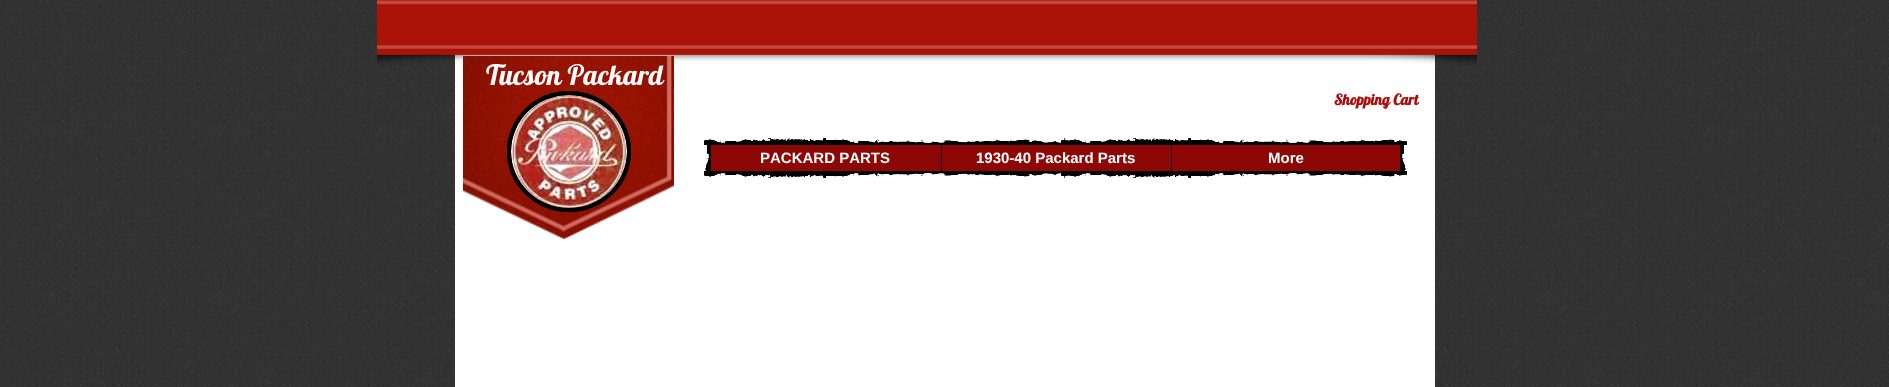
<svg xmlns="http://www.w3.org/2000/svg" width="1889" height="387">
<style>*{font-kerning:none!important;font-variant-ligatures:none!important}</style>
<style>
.a{font:28px Lobster;fill:#fff}
.b{font:bold 15px Lobster;fill:#ab0d0d}
.c{font:bold 15px Liberation Sans;fill:#fff}
</style>
<rect width="100%" height="100%" fill="#2f2f2f"/>
<image href="1.png" x="0" y="0" width="1889" height="387"/>
<path fill="#fff" d="M455 54h980v333H455z"/>
<image href="2.png" x="377" y="0" width="1100" height="66"/>
<image href="3.png" x="463" y="56" width="211" height="184"/>
<ellipse fill="#000" cx="569" cy="151.5" rx="62" ry="60.5"/>
<path fill="none" stroke="#000" stroke-width="4" d="M569 93c33 0 60 26 60 58.5c0 32.5-27 58.5-60 58.5c-33 0-60-26-60-58.5c0-32.5 27-58.5 60-58.5z"/>
<image href="4.png" x="511" y="95" width="116" height="113"/>
<image href="5.png" x="704" y="138" width="703" height="7"/>
<image href="6.png" x="705" y="145" width="6" height="26"/>
<path fill="#8e0707" d="M711 145h689v26H711z"/>
<path fill="#1a1a1a" d="M941 145h1v26H941z"/>
<path fill="#1a1a1a" d="M1171 145h1v26H1171z"/>
<image href="7.png" x="1400" y="145" width="6" height="26"/>
<image href="8.png" x="704" y="171" width="703" height="7"/>
<text class="a" x="486" y="85">Tucson Packard</text>
<text class="b" x="1334" y="105">Shopping Cart</text>
<text class="c" x="760" y="163">PACKARD PARTS</text>
<text class="c" x="976" y="163">1930-40 Packard Parts</text>
<text class="c" x="1268" y="163">More</text>
</svg>
